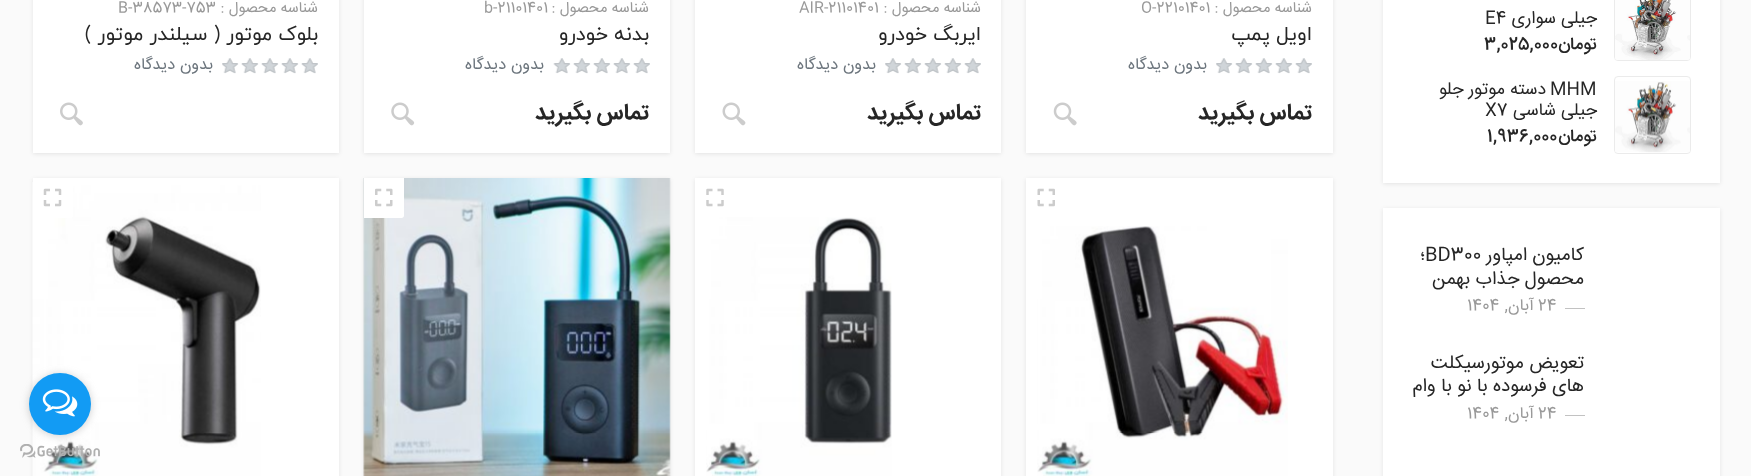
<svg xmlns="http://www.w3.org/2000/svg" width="1751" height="476">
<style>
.a{font:17.5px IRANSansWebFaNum;direction:rtl;fill:#262626}
.b{font:17.5px IRANSansWebFaNum;fill:#262626}
.c{font:500 17.5px IRANSansWebFaNum;direction:rtl;fill:#262626}
.d{font:500 17.5px IRANSansWebFaNum;fill:#262626}
.e{font:18.75px IRANSansWebFaNum;direction:rtl;fill:#262626}
.f{font:18.75px IRANSansWebFaNum;fill:#262626}
.g{font:16.25px IRANSansWebFaNum;fill:#999}
.h{font:16.25px IRANSansWebFaNum;direction:rtl;fill:#999}
.i{font:15px IRANSansWebFaNum;direction:rtl;fill:#999}
.j{font:15px IRANSansWebFaNum;fill:#999}
.k{font:20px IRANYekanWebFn;direction:rtl;fill:#262626}
.l{font:16.25px IRANSansWebFaNum;direction:rtl;fill:#6c757d}
.m{font:bold 22.5px IRANSansWebFaNum;direction:rtl;fill:#262626}
</style>
<rect width="100%" height="100%" fill="#fafafa"/>
<path fill="#00000017" filter="blur(2px)" d="M1383 -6h337v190H1383z"/>
<path fill="#fff" d="M1383 0h337v183H1383z"/>
<rect fill="none" stroke="#ebebeb" x="1614.5" y="-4.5" width="76" height="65" rx="3.5"/>
<image href="1.png" x="1615" y="0" width="75" height="60"/>
<rect fill="none" stroke="#ebebeb" x="1614.5" y="76.5" width="76" height="77" rx="3.5"/>
<image href="2.png" x="1615" y="81" width="75" height="72"/>
<path fill="#00000017" filter="blur(2px)" d="M1383 209h337v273H1383z"/>
<path fill="#fff" d="M1383 208h337v268H1383z"/>
<path fill="#c2c2c2" d="M1565 308h20v1H1565z"/>
<path fill="#c2c2c2" d="M1565 415h20v1H1565z"/>
<path fill="#00000017" filter="blur(2px)" d="M1026 -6h307v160H1026z"/>
<path fill="#fff" d="M1026 0h307v153H1026z"/>
<image href="3.png" x="1216" y="58" width="96" height="16"/>
<image href="4.png" x="1053" y="102" width="24" height="24"/>
<path fill="#00000017" filter="blur(2px)" d="M695 -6h306v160H695z"/>
<path fill="#fff" d="M695 0h306v153H695z"/>
<image href="3.png" x="885" y="58" width="96" height="16"/>
<image href="5.png" x="722" y="102" width="24" height="24"/>
<path fill="#00000017" filter="blur(2px)" d="M364 -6h306v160H364z"/>
<path fill="#fff" d="M364 0h306v153H364z"/>
<image href="6.png" x="553" y="58" width="97" height="16"/>
<image href="7.png" x="391" y="102" width="24" height="24"/>
<path fill="#00000017" filter="blur(2px)" d="M33 -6h306v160H33z"/>
<path fill="#fff" d="M33 0h306v153H33z"/>
<image href="3.png" x="222" y="58" width="96" height="16"/>
<image href="8.png" x="60" y="102" width="23" height="24"/>
<path fill="#00000017" filter="blur(2px)" d="M1026 179h307v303H1026z"/>
<path fill="#fff" d="M1026 178h307v298H1026z"/>
<image href="9.png" x="1037" y="188" width="18" height="19"/>
<image href="10.png" x="1037" y="226" width="251" height="250"/>
<path fill="#00000017" filter="blur(2px)" d="M695 179h306v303H695z"/>
<path fill="#fff" d="M695 178h306v298H695z"/>
<image href="11.png" x="706" y="188" width="18" height="19"/>
<image href="12.png" x="706" y="217" width="186" height="259"/>
<path fill="#00000017" filter="blur(2px)" d="M364 179h306v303H364z"/>
<image href="13.png" x="363" y="178" width="308" height="298"/>
<path fill="#fff" d="M364 178h40v37.5c0 1.5-1 2.5-2.5 2.5h-37.5z"/>
<image href="14.png" x="375" y="188" width="18" height="19"/>
<path fill="#00000017" filter="blur(2px)" d="M33 179h306v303H33z"/>
<path fill="#fff" d="M33 178h306v298H33z"/>
<image href="16.png" x="32" y="182" width="229" height="294"/>
<path fill="#fff" d="M33 178h40v37.5c0 1.5-1 2.5-2.5 2.5h-37.5z"/>
<image href="15.png" x="43" y="188" width="19" height="19"/>
<image href="18.png" x="20" y="444" width="80" height="14"/>
<rect fill="#88888866" filter="blur(4.5px)" x="29" y="374" width="62" height="62" rx="31"/>
<circle fill="#129bf4" cx="60" cy="404" r="31"/>
<image href="17.png" x="42" y="389" width="36" height="28"/>
<text class="a" x="1597" y="23">جیلی سواری</text>
<text class="b" x="1485" y="23">E4</text>
<text class="c" x="1597" y="49">تومان</text>
<text class="d" x="1484" y="49">3,025,000</text>
<text class="b" x="1550" y="94">MHM</text>
<text class="a" x="1546" y="94">دسته موتور جلو</text>
<text class="a" x="1597" y="115">جیلی شاسی</text>
<text class="b" x="1485" y="115">X7</text>
<text class="c" x="1597" y="141">تومان</text>
<text class="d" x="1487" y="141">1,936,000</text>
<text class="e" x="1584" y="260">کامیون امپاور</text>
<text class="f" x="1425" y="260">BD300</text>
<text class="e" x="1425" y="260">؛</text>
<text class="e" x="1584" y="284">محصول جذاب بهمن</text>
<text class="g" x="1538" y="310">24</text>
<text class="h" x="1534" y="310">آبان,</text>
<text class="g" x="1467" y="310">1404</text>
<text class="e" x="1584" y="368">تعویض موتورسیکلت</text>
<text class="e" x="1584" y="391">های فرسوده با نو با وام</text>
<text class="g" x="1538" y="418">24</text>
<text class="h" x="1534" y="418">آبان,</text>
<text class="g" x="1467" y="418">1404</text>
<text class="i" x="1312" y="12">شناسه محصول :</text>
<text class="j" x="1141" y="12">O-22101401</text>
<text class="k" x="1312" y="40">اویل پمپ</text>
<text class="l" x="1207" y="69">بدون دیدگاه</text>
<text class="m" x="1312" y="119">تماس بگیرید</text>
<text class="i" x="981" y="12">شناسه محصول :</text>
<text class="j" x="799" y="12">AIR-21101401</text>
<text class="k" x="981" y="40">ایربگ خودرو</text>
<text class="l" x="876" y="69">بدون دیدگاه</text>
<text class="m" x="981" y="119">تماس بگیرید</text>
<text class="i" x="649" y="12">شناسه محصول :</text>
<text class="j" x="484" y="12">b-21101401</text>
<text class="k" x="649" y="40">بدنه خودرو</text>
<text class="l" x="544" y="69">بدون دیدگاه</text>
<text class="m" x="649" y="119">تماس بگیرید</text>
<text class="i" x="318" y="12">شناسه محصول :</text>
<text class="j" x="118" y="12">B-38573-753</text>
<text class="k" x="318" y="40">بلوک موتور ( سیلندر موتور )</text>
<text class="l" x="213" y="69">بدون دیدگاه</text>
</svg>
